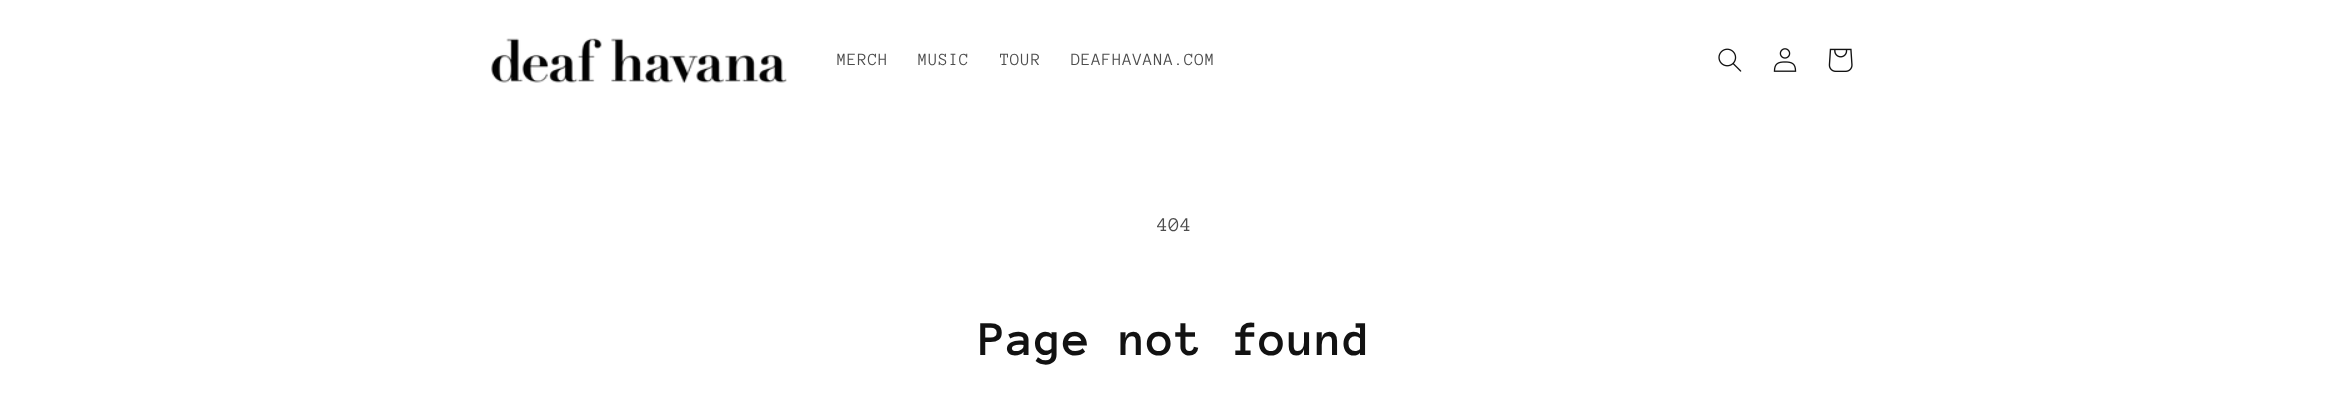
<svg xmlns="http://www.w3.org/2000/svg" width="2349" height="404">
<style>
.a{font:17.5px Anonymous Pro;letter-spacing:0.75px;fill:#4d4d4d}
.b{font:20px Anonymous Pro;letter-spacing:0.75px;fill:#4d4d4d}
.c{font:bold 50px Anonymous Pro;letter-spacing:0.75px;fill:#121212}
</style>
<rect width="100%" height="100%" fill="#fff"/>
<image href="1.png" x="491" y="38" width="296" height="45"/>
<image href="2.png" x="1718" y="48" width="24" height="24"/>
<image href="3.png" x="1773" y="48" width="24" height="24"/>
<image href="4.png" x="1828" y="48" width="25" height="24"/>
<text class="a" x="837" y="65">MERCH</text>
<text class="a" x="918" y="65">MUSIC</text>
<text class="a" x="1000" y="65">TOUR</text>
<text class="a" x="1071" y="65">DEAFHAVANA.COM</text>
<text class="b" x="1157" y="231">404</text>
<text class="c" x="979" y="355">Page not found</text>
</svg>
